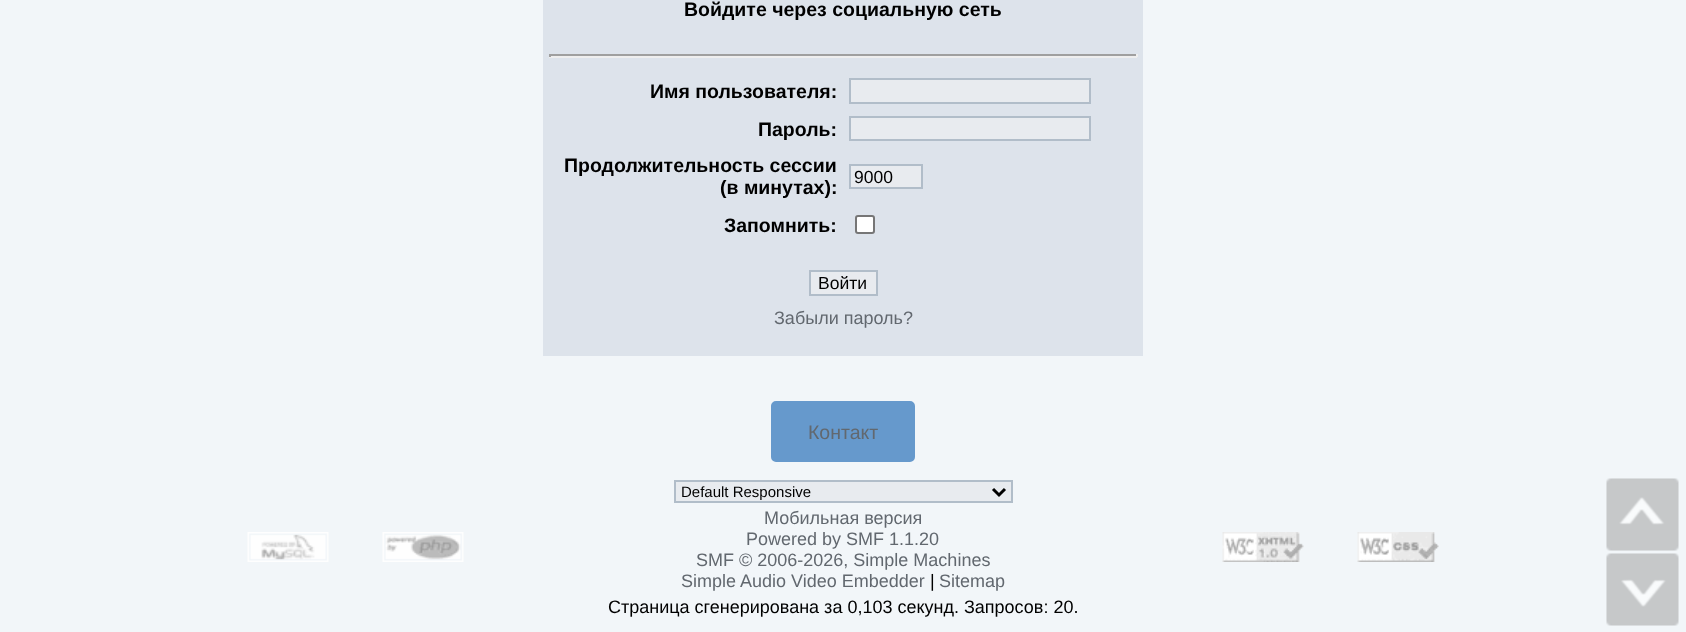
<svg xmlns="http://www.w3.org/2000/svg" width="1686" height="632">
<style>
.a{font:bold 19.5px Liberation Sans;fill:#000}
.b{font:17.5px Liberation Sans;fill:#000}
.c{font:18px Liberation Sans;fill:#62686f}
.d{font:19.5px Liberation Sans;fill:#62686f}
.e{font:15px Liberation Sans;fill:#000}
.f{font:18px Liberation Sans;fill:#000}
</style>
<rect width="100%" height="100%" fill="#f2f6f9"/>
<path fill="#dde3eb" d="M543 0h600v356H543z"/>
<path fill="#9f9f9f" d="M549 54h588v2H549z"/>
<path fill="#eee" d="M1136 54h2v3H1136z"/>
<path fill="#eee" d="M549 56h588v2H549z"/>
<path fill="#9f9f9f" d="M549 54h2v3H549z"/>
<path fill="#e8ebef" stroke="#b1bdc9" stroke-width="2" d="M850 79h240v24H850z"/>
<path fill="#e8ebef" stroke="#b1bdc9" stroke-width="2" d="M850 117h240v23H850z"/>
<path fill="#e8ebef" stroke="#b1bdc9" stroke-width="2" d="M850 165h72v23H850z"/>
<rect fill="#fff" stroke="#767676" stroke-width="2" x="856" y="216" width="18" height="17" rx="2"/>
<path fill="#e8ebef" stroke="#b1bdc9" stroke-width="2" d="M810 271h67v24H810z"/>
<rect fill="#69c" stroke="#69c" stroke-width="2" x="772" y="402" width="142" height="59" rx="4"/>
<path fill="#e8ebef" stroke="#b1bdc9" stroke-width="2" d="M675 481h337v21H675z"/>
<path fill="none" stroke="#000" stroke-width="3" d="M993 489l6 6l6-6"/>
<image href="1.png" x="247" y="532" width="82" height="30"/>
<image href="2.png" x="382" y="532" width="82" height="30"/>
<image href="3.png" x="1222" y="532" width="82" height="30"/>
<image href="4.png" x="1357" y="532" width="82" height="30"/>
<image href="5.png" x="1606" y="478" width="73" height="73"/>
<image href="6.png" x="1606" y="553" width="73" height="73"/>
<text class="a" x="684" y="16">Войдите через социальную сеть</text>
<text class="a" x="650" y="98">Имя пользователя:</text>
<text class="a" x="758" y="136">Пароль:</text>
<text class="a" x="564" y="172">Продолжительность сессии</text>
<text class="a" x="720" y="194">(в минутах):</text>
<text class="b" x="854" y="183">9000</text>
<text class="a" x="724" y="232">Запомнить:</text>
<text class="b" x="818" y="289">Войти</text>
<text class="c" x="774" y="324">Забыли пароль?</text>
<text class="d" x="808" y="439">Контакт</text>
<text class="e" x="681" y="497">Default Responsive</text>
<text class="c" x="764" y="524">Мобильная версия</text>
<text class="c" x="746" y="545">Powered by SMF 1.1.20</text>
<text class="c" x="696" y="566">SMF © 2006-2026, Simple Machines</text>
<text class="c" x="681" y="587">Simple Audio Video Embedder</text>
<text class="f" x="930" y="587">|</text>
<text class="c" x="939" y="587">Sitemap</text>
<text class="f" x="608" y="613">Страница сгенерирована за 0,103 секунд. Запросов: 20.</text>
</svg>
